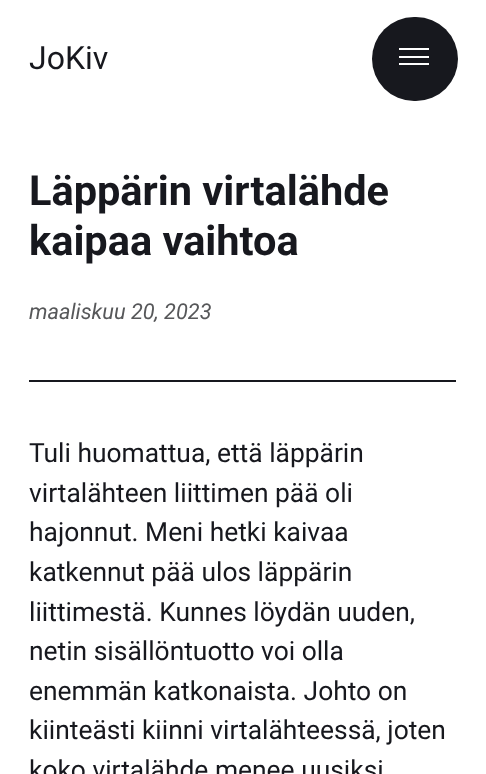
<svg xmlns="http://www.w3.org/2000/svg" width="486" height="774">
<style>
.a{font:32px Roboto;fill:#17181e}
.b{font:bold 41.5px Roboto;fill:#17181e}
.c{font:italic 21.75px Roboto;fill:#57585a}
.d{font:26.4px Roboto;fill:#17181e}
</style>
<rect width="100%" height="100%" fill="#fff"/>
<rect fill="#17181e" x="372" y="17" width="86" height="84" rx="42"/>
<path fill="#fff" d="M399 56h30v2H399z"/>
<path fill="#fff" d="M399 48h30v2H399z"/>
<path fill="#fff" d="M399 63h30v2H399z"/>
<path fill="#17181e" d="M29 380h427v2H29z"/>
<text class="a" x="29" y="69">JoKiv</text>
<text class="b" x="29" y="205">Läppärin virtalähde</text>
<text class="b" x="29" y="255">kaipaa vaihtoa</text>
<text class="c" x="29" y="319">maaliskuu 20, 2023</text>
<text class="d" x="29" y="462">Tuli huomattua, että läppärin</text>
<text class="d" x="29" y="502">virtalähteen liittimen pää oli</text>
<text class="d" x="29" y="541">hajonnut. Meni hetki kaivaa</text>
<text class="d" x="29" y="581">katkennut pää ulos läppärin</text>
<text class="d" x="29" y="621">liittimestä. Kunnes löydän uuden,</text>
<text class="d" x="29" y="660">netin sisällöntuotto voi olla</text>
<text class="d" x="29" y="700">enemmän katkonaista. Johto on</text>
<text class="d" x="29" y="739">kiinteästi kiinni virtalähteessä, joten</text>
<text class="d" x="29" y="779">koko virtalähde menee uusiksi</text>
</svg>
